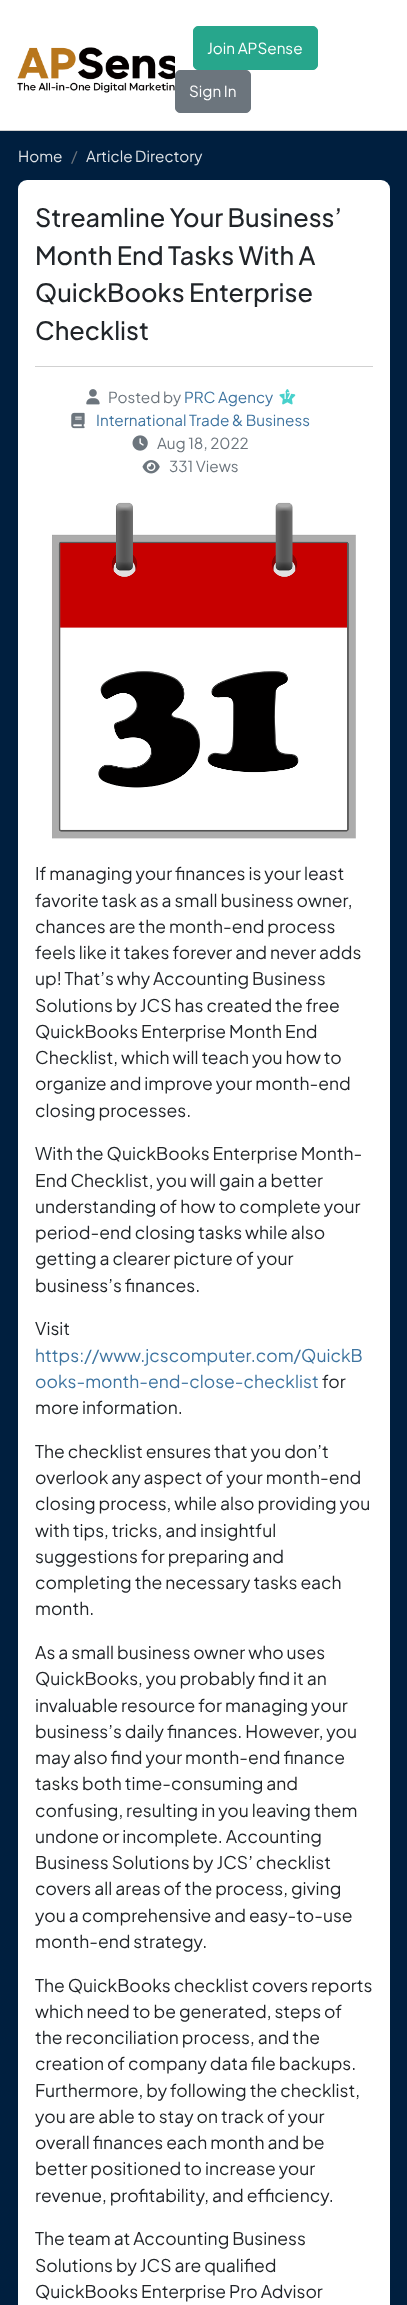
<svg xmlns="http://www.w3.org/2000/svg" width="407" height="2305">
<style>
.a{font:15.25px Plus Jakarta Sans;fill:#fff}
.b{font:15.25px Plus Jakarta Sans;fill:#dee2e6}
.c{font:15.25px Plus Jakarta Sans;fill:#6c757d}
.d{font:500 25.25px Plus Jakarta Sans;fill:#212529}
.e{font:15.25px Plus Jakarta Sans;fill:#3e74a0}
.f{font:bold 9px Plus Jakarta Sans;fill:#fff}
.g{font:17.5px Plus Jakarta Sans;fill:#212529}
.h{font:17.5px Plus Jakarta Sans;fill:#3e74a0}
</style>
<rect width="100%" height="100%" fill="#001f3f"/>
<path fill="#fff" d="M0 0h407v130H0z"/>
<path fill="#d1d1d1" d="M0 130h407v1H0z"/>
<image href="1.png" x="17" y="47" width="158" height="46"/>
<rect fill="#27a68c" stroke="#27a68c" x="193.5" y="26.5" width="124" height="43" rx="4.5"/>
<rect fill="#6c757d" stroke="#6c757d" x="175.5" y="70.5" width="75" height="42" rx="4.5"/>
<rect fill="#fff" x="18" y="180" width="372" height="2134" rx="9"/>
<path fill="#d1d1d1" d="M35 366h338v1H35z"/>
<image href="2.png" x="86" y="389" width="14" height="16"/>
<image href="3.png" x="279" y="389" width="17" height="16"/>
<image href="4.png" x="71" y="412" width="14" height="17"/>
<image href="5.png" x="132" y="435" width="16" height="16"/>
<image href="6.png" x="142" y="460" width="18" height="14"/>
<image href="7.png" x="52" y="502" width="304" height="337"/>
<text class="a" x="207" y="54">Join APSense</text>
<text class="a" x="189" y="97">Sign In</text>
<text class="b" x="18" y="162">Home</text>
<text class="c" x="71" y="162">/</text>
<text class="b" x="86" y="162">Article Directory</text>
<text class="d" x="35" y="227">Streamline Your Business’</text>
<text class="d" x="35" y="265">Month End Tasks With A</text>
<text class="d" x="35" y="302">QuickBooks Enterprise</text>
<text class="d" x="35" y="340">Checklist</text>
<text class="c" x="108" y="403">Posted by</text>
<text class="e" x="184" y="403">PRC Agency</text>
<text class="f" x="283" y="399">17</text>
<text class="e" x="96" y="426">International Trade &amp; Business</text>
<text class="c" x="157" y="449">Aug 18, 2022</text>
<text class="c" x="169" y="472">331 Views</text>
<text class="g" x="35" y="880">If managing your finances is your least</text>
<text class="g" x="35" y="907">favorite task as a small business owner,</text>
<text class="g" x="35" y="933">chances are the month-end process</text>
<text class="g" x="35" y="959">feels like it takes forever and never adds</text>
<text class="g" x="35" y="985">up! That’s why Accounting Business</text>
<text class="g" x="35" y="1012">Solutions by JCS has created the free</text>
<text class="g" x="35" y="1038">QuickBooks Enterprise Month End</text>
<text class="g" x="35" y="1064">Checklist, which will teach you how to</text>
<text class="g" x="35" y="1090">organize and improve your month-end</text>
<text class="g" x="35" y="1117">closing processes.</text>
<text class="g" x="35" y="1160">With the QuickBooks Enterprise Month-</text>
<text class="g" x="35" y="1187">End Checklist, you will gain a better</text>
<text class="g" x="35" y="1213">understanding of how to complete your</text>
<text class="g" x="35" y="1239">period-end closing tasks while also</text>
<text class="g" x="35" y="1265">getting a clearer picture of your</text>
<text class="g" x="35" y="1292">business’s finances.</text>
<text class="g" x="35" y="1335">Visit</text>
<text class="h" x="35" y="1362">https://www.jcscomputer.com/QuickB</text>
<text class="h" x="35" y="1388">ooks-month-end-close-checklist</text>
<text class="g" x="322" y="1388">for</text>
<text class="g" x="35" y="1414">more information.</text>
<text class="g" x="35" y="1458">The checklist ensures that you don’t</text>
<text class="g" x="35" y="1484">overlook any aspect of your month-end</text>
<text class="g" x="35" y="1510">closing process, while also providing you</text>
<text class="g" x="35" y="1537">with tips, tricks, and insightful</text>
<text class="g" x="35" y="1563">suggestions for preparing and</text>
<text class="g" x="35" y="1589">completing the necessary tasks each</text>
<text class="g" x="35" y="1615">month.</text>
<text class="g" x="35" y="1659">As a small business owner who uses</text>
<text class="g" x="35" y="1685">QuickBooks, you probably find it an</text>
<text class="g" x="35" y="1712">invaluable resource for managing your</text>
<text class="g" x="35" y="1738">business’s daily finances. However, you</text>
<text class="g" x="35" y="1764">may also find your month-end finance</text>
<text class="g" x="35" y="1790">tasks both time-consuming and</text>
<text class="g" x="35" y="1817">confusing, resulting in you leaving them</text>
<text class="g" x="35" y="1843">undone or incomplete. Accounting</text>
<text class="g" x="35" y="1869">Business Solutions by JCS’ checklist</text>
<text class="g" x="35" y="1895">covers all areas of the process, giving</text>
<text class="g" x="35" y="1922">you a comprehensive and easy-to-use</text>
<text class="g" x="35" y="1948">month-end strategy.</text>
<text class="g" x="35" y="1992">The QuickBooks checklist covers reports</text>
<text class="g" x="35" y="2018">which need to be generated, steps of</text>
<text class="g" x="35" y="2044">the reconciliation process, and the</text>
<text class="g" x="35" y="2070">creation of company data file backups.</text>
<text class="g" x="35" y="2097">Furthermore, by following the checklist,</text>
<text class="g" x="35" y="2123">you are able to stay on track of your</text>
<text class="g" x="35" y="2149">overall finances each month and be</text>
<text class="g" x="35" y="2175">better positioned to increase your</text>
<text class="g" x="35" y="2202">revenue, profitability, and efficiency.</text>
<text class="g" x="35" y="2245">The team at Accounting Business</text>
<text class="g" x="35" y="2272">Solutions by JCS are qualified</text>
<text class="g" x="35" y="2298">QuickBooks Enterprise Pro Advisor</text>
</svg>
